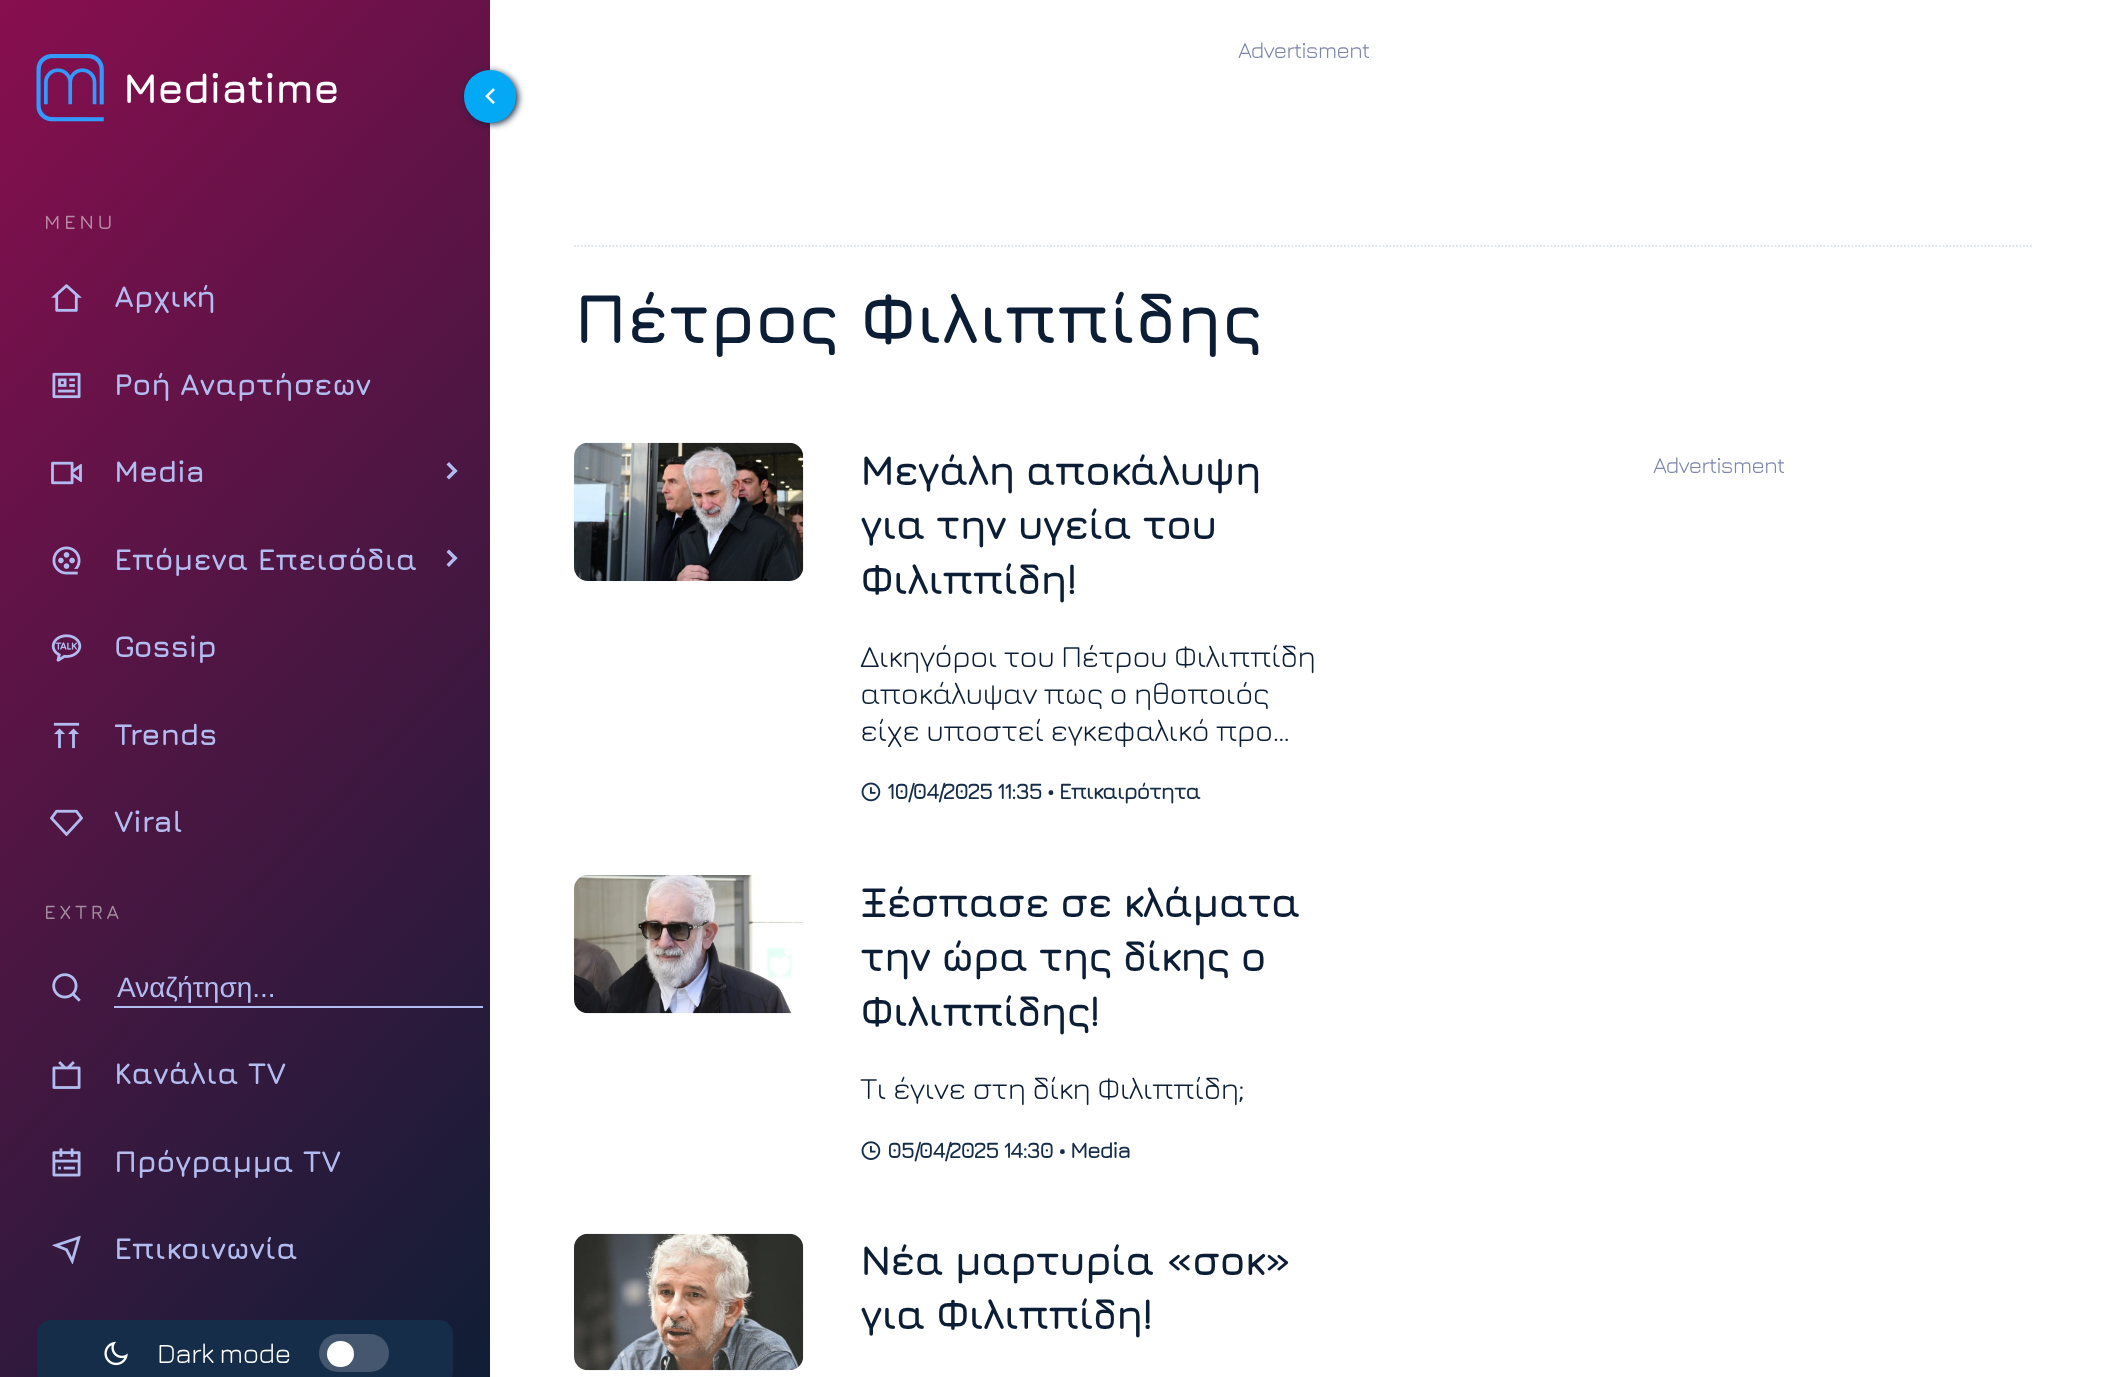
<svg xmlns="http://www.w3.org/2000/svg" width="2116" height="1377">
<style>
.a{font:bold 42px Jura;letter-spacing:-0.9px;fill:#fff}
.b{font:600 20px Jura;letter-spacing:3.5px;fill:#ba88a5}
.c{font:bold 30.25px Jura;letter-spacing:-0.4px;fill:#b2bcf1}
.d{font:600 20px Jura;letter-spacing:3.5px;fill:#a48ba0}
.e{font:28px Liberation Sans;fill:#b2bcf1}
.f{font:28px Jura;letter-spacing:-0.9px;fill:#fff}
.g{font:22.75px Jura;letter-spacing:-0.9px;fill:#7d84ab}
.h{font:bold 70px Jura;letter-spacing:-0.9px;fill:#0c1e35}
.i{font:bold 42px Jura;letter-spacing:-1.75px;fill:#0c1e35}
.j{font:30.75px Jura;letter-spacing:-0.9px;fill:#0c1e35}
.k{font:bold 22.4px Jura;letter-spacing:-1.75px;fill:#162d4a}
</style>
<defs>
<linearGradient id="g1" gradientUnits="userSpaceOnUse" x1="733" y1="1171" x2="-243" y2="261"><stop offset="0" stop-color="#0c1e35"/><stop offset="1" stop-color="#880e4f"/></linearGradient>
<clipPath id="clip1"><path d="M859 637h461v110H859z"/></clipPath>
</defs>
<rect width="100%" height="100%" fill="#fff"/>
<path fill="url(#g1)" d="M0 0h490v1377H0z"/>
<image href="1.png" x="36" y="54" width="68" height="68"/>
<image href="2.png" x="51" y="284" width="31" height="28"/>
<image href="3.png" x="52" y="372" width="29" height="27"/>
<image href="4.png" x="51" y="461" width="31" height="24"/>
<path fill="#b2bcf1" d="M446.5 464.5l2.5-2.5l8.5 9l-2.5 2z"/>
<path fill="#b2bcf1" d="M446.5 477l8.5-8.5l2.5 2.5l-8.5 8.5z"/>
<image href="5.png" x="52" y="546" width="29" height="29"/>
<path fill="#b2bcf1" d="M446.5 552l2.5-2.5l8.5 8.5l-2.5 2.5z"/>
<path fill="#b2bcf1" d="M446.5 564.5l8.5-8.5l2.5 2l-8.5 9z"/>
<image href="6.png" x="51" y="634" width="31" height="28"/>
<image href="7.png" x="53" y="722" width="27" height="27"/>
<image href="8.png" x="49" y="809" width="35" height="28"/>
<image href="9.png" x="52" y="973" width="29" height="29"/>
<path fill="#b2bcf1" d="M114 1006h369v2H114z"/>
<image href="10.png" x="52" y="1061" width="29" height="28"/>
<image href="11.png" x="52" y="1148" width="29" height="29"/>
<image href="12.png" x="52" y="1235" width="29" height="30"/>
<rect fill="#162d4a" x="37" y="1320" width="416" height="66" rx="14"/>
<image href="13.png" x="104" y="1341" width="24" height="25"/>
<rect fill="#45576e" x="319" y="1334" width="70" height="38" rx="19"/>
<rect fill="#fff" x="327" y="1341" width="27" height="26" rx="13"/>
<rect fill="#0c1e35" filter="blur(3.5px)" x="466" y="72" width="52" height="52" rx="26"/>
<rect fill="#03a9f4" x="464" y="70" width="52" height="53" rx="26"/>
<image href="14.png" x="485" y="88" width="10" height="17"/>
<path fill="none" stroke="#dee2ec" stroke-width="1.8" stroke-dasharray="1.75 1.75" d="M574 246h1459.5"/>
<image href="15.png" x="574" y="442" width="230" height="139"/>
<image href="16.png" x="861" y="782" width="20" height="20"/>
<image href="17.png" x="574" y="875" width="229" height="139"/>
<image href="18.png" x="861" y="1141" width="20" height="19"/>
<image href="19.png" x="574" y="1233" width="230" height="138"/>
<text class="a" x="123" y="103">Mediatime</text>
<text class="b" x="44" y="229">MENU</text>
<text class="c" x="114" y="307">Αρχική</text>
<text class="c" x="114" y="395">Ροή Αναρτήσεων</text>
<text class="c" x="114" y="482">Media</text>
<text class="c" x="114" y="570">Επόμενα Επεισόδια</text>
<text class="c" x="114" y="657">Gossip</text>
<text class="c" x="114" y="745">Trends</text>
<text class="c" x="114" y="832">Viral</text>
<text class="d" x="44" y="919">EXTRA</text>
<text class="e" x="117" y="997">Αναζήτηση...</text>
<text class="c" x="114" y="1084">Κανάλια TV</text>
<text class="c" x="114" y="1172">Πρόγραμμα TV</text>
<text class="c" x="114" y="1259">Επικοινωνία</text>
<text class="f" x="157" y="1363">Dark mode</text>
<text class="g" x="1238" y="58">Advertisment</text>
<text class="h" x="574" y="343">Πέτρος Φιλιππίδης</text>
<text class="i" x="860" y="485">Μεγάλη αποκάλυψη</text>
<text class="i" x="860" y="539">για την υγεία του</text>
<text class="i" x="860" y="594">Φιλιππίδη!</text>
<text class="j" x="860" y="667">Δικηγόροι του Πέτρου Φιλιππίδη</text>
<text class="j" x="860" y="704">αποκάλυψαν πως ο ηθοποιός</text>
<g clip-path="url(#clip1)">
<text class="j" x="860" y="741">είχε υποστεί εγκεφαλικό προ…</text>
</g>
<text class="k" x="887" y="799">10/04/2025 11:35 • Επικαιρότητα</text>
<text class="i" x="860" y="917">Ξέσπασε σε κλάματα</text>
<text class="i" x="860" y="971">την ώρα της δίκης ο</text>
<text class="i" x="860" y="1026">Φιλιππίδης!</text>
<text class="j" x="860" y="1099">Τι έγινε στη δίκη Φιλιππίδη;</text>
<text class="k" x="887" y="1158">05/04/2025 14:30 • Media</text>
<text class="i" x="860" y="1275">Νέα μαρτυρία «σοκ»</text>
<text class="i" x="860" y="1329">για Φιλιππίδη!</text>
<text class="g" x="1653" y="473">Advertisment</text>
</svg>
